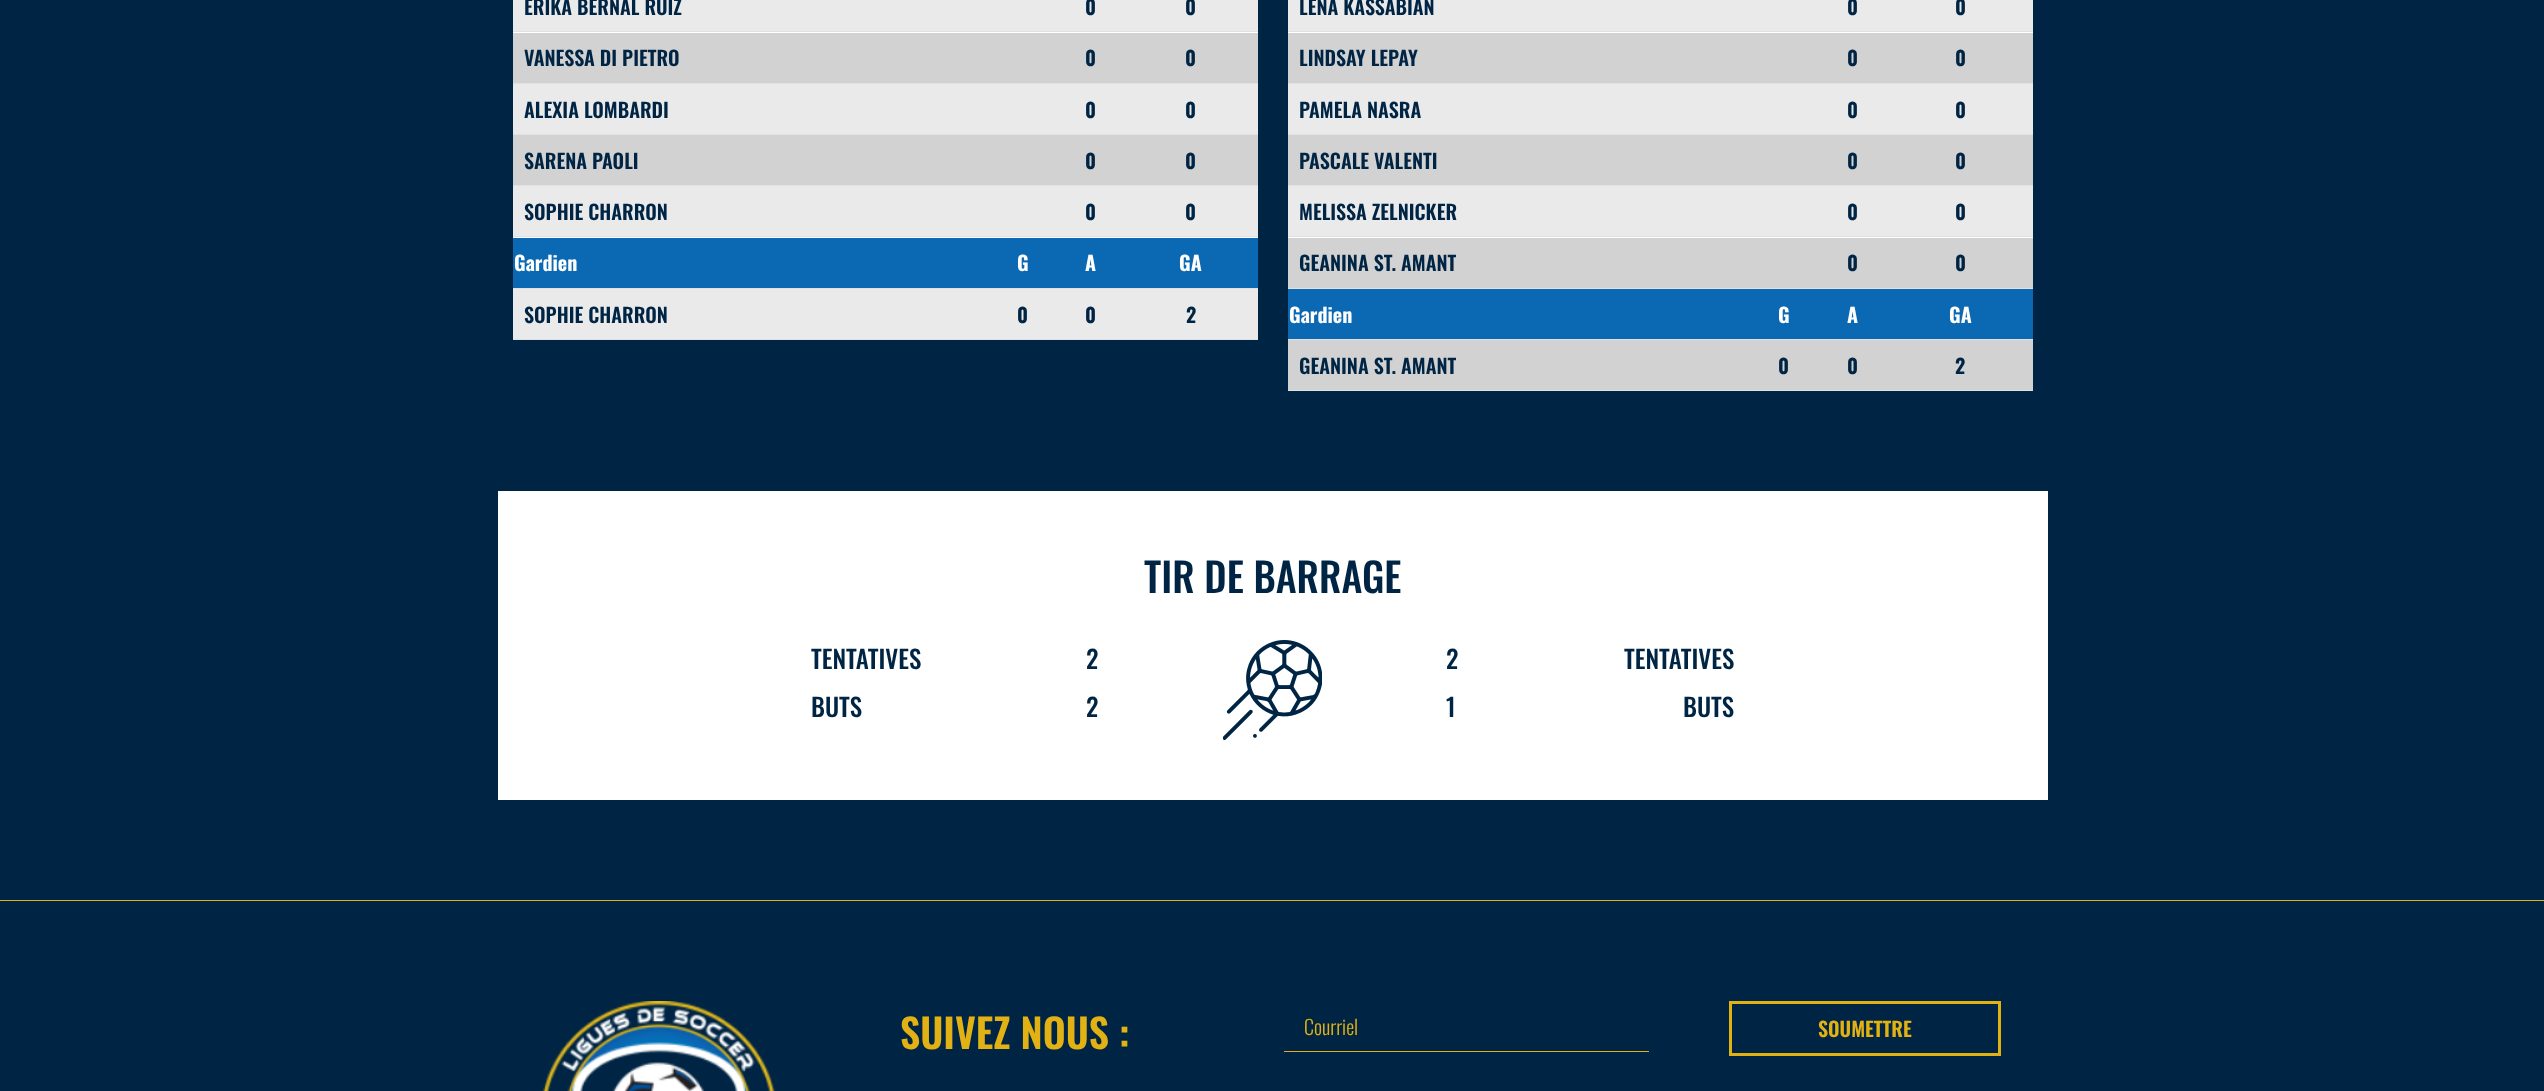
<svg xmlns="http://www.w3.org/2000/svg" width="2544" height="1091">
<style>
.a{font:600 20px Oswald;fill:#002544}
.b{font:bold 20px Oswald;fill:#002544}
.c{font:bold 20px Oswald;fill:#fff}
.d{font:500 40px Oswald;fill:#002544}
.e{font:500 25px Oswald;fill:#002544}
.f{font:600 40px Oswald;fill:#e2b214}
.g{font:300 20px Oswald;fill:#e2b214}
.h{font:600 20px Oswald;fill:#e2b214}
</style>
<rect width="100%" height="100%" fill="#002544"/>
<path fill="#fff" d="M513 32h745v206H513z"/>
<path fill="#eaeaea" d="M513 0h745v31H513z"/>
<path fill="#dee2e6" d="M513 31h745v1H513z"/>
<path fill="#d3d2d2" d="M513 33h745v50H513z"/>
<path fill="#dee2e6" d="M513 83h745v1H513z"/>
<path fill="#eaeaea" d="M513 84h745v50H513z"/>
<path fill="#dee2e6" d="M513 134h745v1H513z"/>
<path fill="#d3d2d2" d="M513 135h745v50H513z"/>
<path fill="#dee2e6" d="M513 185h745v1H513z"/>
<path fill="#eaeaea" d="M513 186h745v50H513z"/>
<path fill="#dee2e6" d="M513 236h745v1H513z"/>
<path fill="#0b68b3" d="M513 238h745v50H513z"/>
<path fill="#dee2e6" d="M513 288h745v1H513z"/>
<path fill="#eaeaea" d="M513 289h745v50H513z"/>
<path fill="#dee2e6" d="M513 339h745v1H513z"/>
<path fill="#fff" d="M1288 32h745v206H1288z"/>
<path fill="#eaeaea" d="M1288 0h745v31H1288z"/>
<path fill="#dee2e6" d="M1288 31h745v1H1288z"/>
<path fill="#d3d2d2" d="M1288 33h745v50H1288z"/>
<path fill="#dee2e6" d="M1288 83h745v1H1288z"/>
<path fill="#eaeaea" d="M1288 84h745v50H1288z"/>
<path fill="#dee2e6" d="M1288 134h745v1H1288z"/>
<path fill="#d3d2d2" d="M1288 135h745v50H1288z"/>
<path fill="#dee2e6" d="M1288 185h745v1H1288z"/>
<path fill="#eaeaea" d="M1288 186h745v50H1288z"/>
<path fill="#dee2e6" d="M1288 236h745v1H1288z"/>
<path fill="#d3d2d2" d="M1288 238h745v50H1288z"/>
<path fill="#dee2e6" d="M1288 288h745v1H1288z"/>
<path fill="#0b68b3" d="M1288 289h745v50H1288z"/>
<path fill="#dee2e6" d="M1288 339h745v1H1288z"/>
<path fill="#d3d2d2" d="M1288 340h745v50H1288z"/>
<path fill="#dee2e6" d="M1288 390h745v1H1288z"/>
<path fill="#fff" d="M498 491h1550v309H498z"/>
<image href="1.png" x="1223" y="640" width="99" height="100"/>
<path fill="#e2b214" d="M0 900h2544v1H0z"/>
<image href="2.png" x="542" y="1001" width="233" height="90"/>
<path fill="#e2b214" d="M1284 1051h365v1H1284z"/>
<path fill="none" stroke="#e2b214" stroke-width="3" d="M1730.5 1002.5h269v52H1730.5z"/>
<text class="a" x="524" y="15">ERIKA BERNAL RUIZ</text>
<text class="b" x="1085" y="15">0</text>
<text class="b" x="1185" y="15">0</text>
<text class="a" x="524" y="66">VANESSA DI PIETRO</text>
<text class="b" x="1085" y="66">0</text>
<text class="b" x="1185" y="66">0</text>
<text class="a" x="524" y="118">ALEXIA LOMBARDI</text>
<text class="b" x="1085" y="118">0</text>
<text class="b" x="1185" y="118">0</text>
<text class="a" x="524" y="169">SARENA PAOLI</text>
<text class="b" x="1085" y="169">0</text>
<text class="b" x="1185" y="169">0</text>
<text class="a" x="524" y="220">SOPHIE CHARRON</text>
<text class="b" x="1085" y="220">0</text>
<text class="b" x="1185" y="220">0</text>
<text class="c" x="514" y="271">Gardien</text>
<text class="c" x="1017" y="271">G</text>
<text class="c" x="1085" y="271">A</text>
<text class="c" x="1179" y="271">GA</text>
<text class="a" x="524" y="323">SOPHIE CHARRON</text>
<text class="b" x="1017" y="323">0</text>
<text class="b" x="1085" y="323">0</text>
<text class="b" x="1186" y="323">2</text>
<text class="a" x="1299" y="15">LENA KASSABIAN</text>
<text class="b" x="1847" y="15">0</text>
<text class="b" x="1955" y="15">0</text>
<text class="a" x="1299" y="66">LINDSAY LEPAY</text>
<text class="b" x="1847" y="66">0</text>
<text class="b" x="1955" y="66">0</text>
<text class="a" x="1299" y="118">PAMELA NASRA</text>
<text class="b" x="1847" y="118">0</text>
<text class="b" x="1955" y="118">0</text>
<text class="a" x="1299" y="169">PASCALE VALENTI</text>
<text class="b" x="1847" y="169">0</text>
<text class="b" x="1955" y="169">0</text>
<text class="a" x="1299" y="220">MELISSA ZELNICKER</text>
<text class="b" x="1847" y="220">0</text>
<text class="b" x="1955" y="220">0</text>
<text class="a" x="1299" y="271">GEANINA ST. AMANT</text>
<text class="b" x="1847" y="271">0</text>
<text class="b" x="1955" y="271">0</text>
<text class="c" x="1289" y="323">Gardien</text>
<text class="c" x="1778" y="323">G</text>
<text class="c" x="1847" y="323">A</text>
<text class="c" x="1949" y="323">GA</text>
<text class="a" x="1299" y="374">GEANINA ST. AMANT</text>
<text class="b" x="1778" y="374">0</text>
<text class="b" x="1847" y="374">0</text>
<text class="b" x="1955" y="374">2</text>
<text class="d" x="1144" y="593">TIR DE BARRAGE</text>
<text class="e" x="811" y="669">TENTATIVES</text>
<text class="e" x="1086" y="669">2</text>
<text class="e" x="811" y="717">BUTS</text>
<text class="e" x="1086" y="717">2</text>
<text class="e" x="1446" y="669">2</text>
<text class="e" x="1624" y="669">TENTATIVES</text>
<text class="e" x="1446" y="717">1</text>
<text class="e" x="1683" y="717">BUTS</text>
<text class="f" x="900" y="1049">SUIVEZ NOUS :</text>
<text class="g" x="1304" y="1035">Courriel</text>
<text class="h" x="1818" y="1037">SOUMETTRE</text>
</svg>
